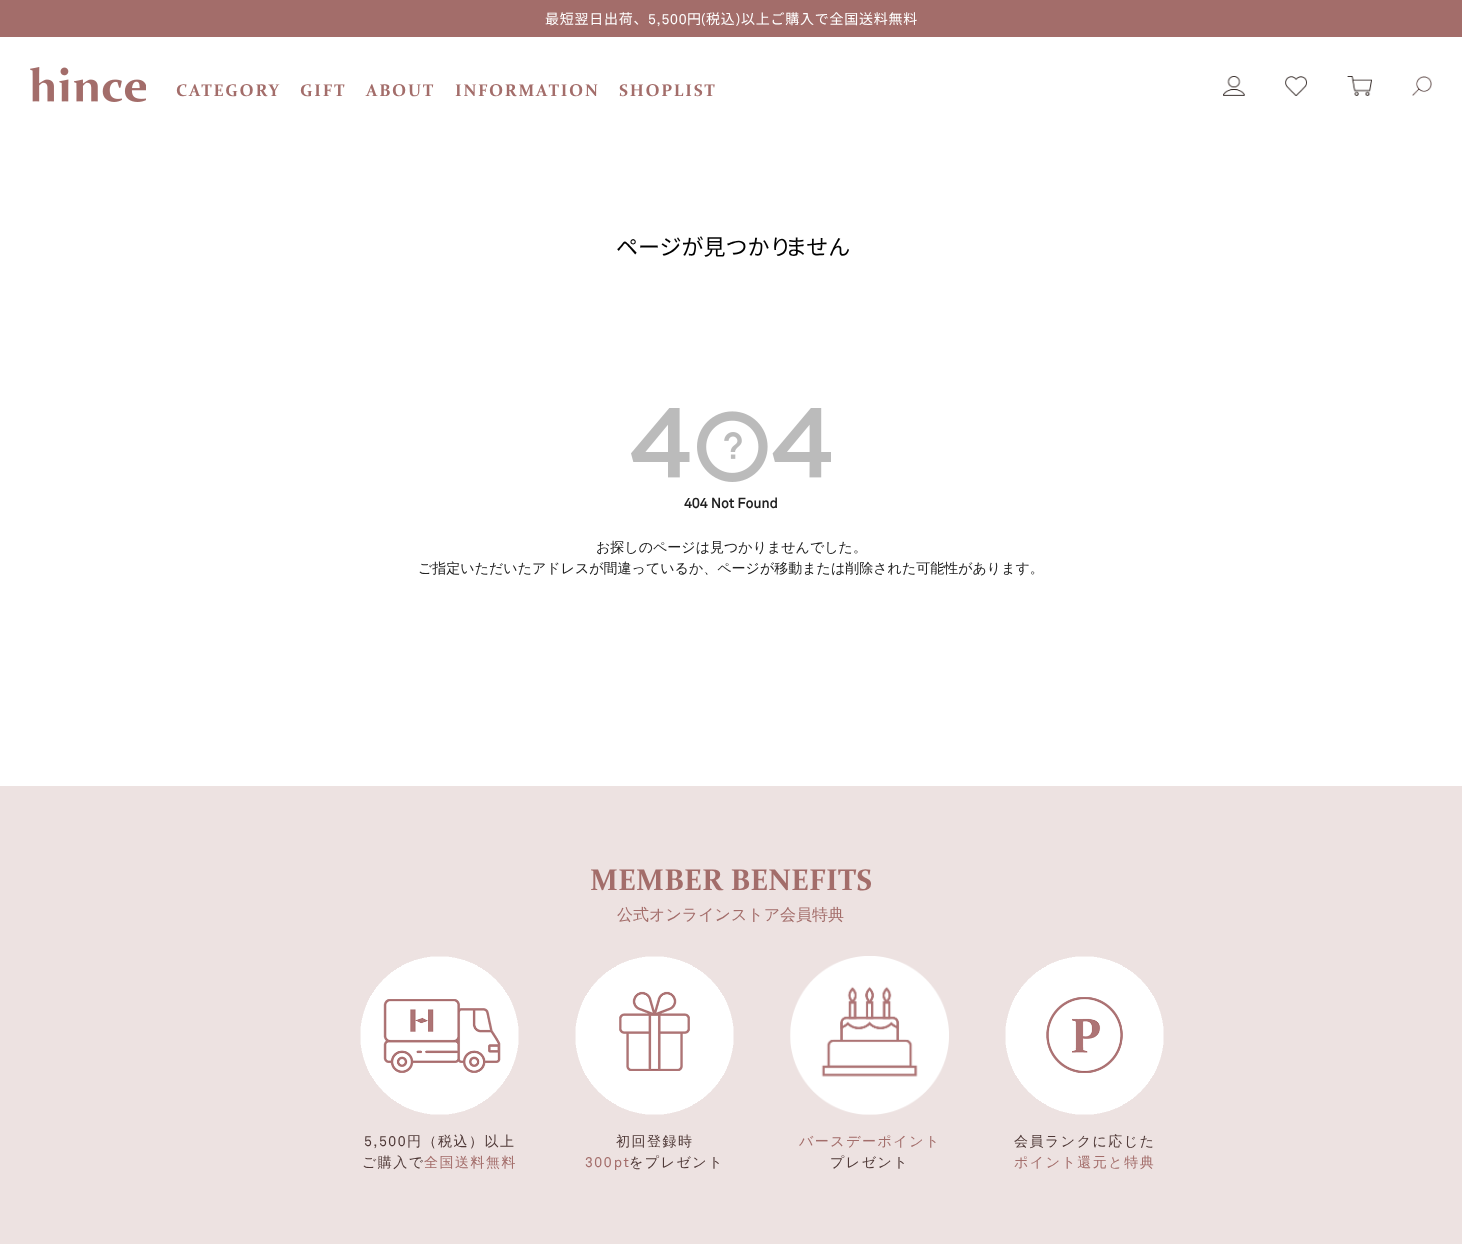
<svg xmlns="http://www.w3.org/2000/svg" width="1462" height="1244">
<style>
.a{font:100 14px Noto Sans JP;letter-spacing:0.75px;fill:#fff}
.b{font:14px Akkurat;letter-spacing:0.75px;fill:#fff}
.c{font:bold 17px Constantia;letter-spacing:1.75px;fill:#a36d6a}
.d{font:100 22px Noto Sans JP;fill:#000}
.e{font:bold 14px Akkurat;fill:#212121}
.f{font:500 14px WenQuanYi Zen Hei;fill:#212121}
.g{font:bold 30px Constantia;fill:#a36d6a}
.h{font:500 16px WenQuanYi Zen Hei;fill:#a36d6a}
.i{font:14px Akkurat;letter-spacing:1.5px;fill:#4e3836}
.j{font:500 14px WenQuanYi Zen Hei;letter-spacing:1.5px;fill:#4e3836}
.k{font:500 14px WenQuanYi Zen Hei;letter-spacing:1.5px;fill:#a36d6a}
.l{font:14px Akkurat;letter-spacing:1.5px;fill:#a36d6a}
</style>
<rect width="100%" height="100%" fill="#fff"/>
<path fill="#a36d6a" d="M0 0h1462v37H0z"/>
<image href="1.png" x="30" y="67" width="116" height="35"/>
<image href="2.png" x="1223" y="76" width="22" height="20"/>
<image href="3.png" x="1285" y="76" width="22" height="20"/>
<image href="4.png" x="1347" y="76" width="25" height="20"/>
<image href="5.png" x="1412" y="76" width="20" height="20"/>
<image href="6.png" x="631" y="408" width="200" height="74"/>
<path fill="#ede2e1" d="M0 786h1462v458H0z"/>
<image href="7.png" x="360" y="956" width="159" height="159"/>
<image href="8.png" x="575" y="956" width="159" height="159"/>
<image href="9.png" x="790" y="956" width="159" height="159"/>
<image href="10.png" x="1005" y="956" width="159" height="159"/>
<text class="a" x="545" y="24">最短翌日出荷、</text>
<text class="b" x="648" y="24">5,500</text>
<text class="a" x="687" y="24">円</text>
<text class="b" x="701" y="24">(</text>
<text class="a" x="706" y="24">税込</text>
<text class="b" x="736" y="24">)</text>
<text class="a" x="741" y="24">以上ご購入で全国送料無料</text>
<text class="c" x="176" y="96">CATEGORY</text>
<text class="c" x="300" y="96">GIFT</text>
<text class="c" x="366" y="96">ABOUT</text>
<text class="c" x="455" y="96">INFORMATION</text>
<text class="c" x="619" y="96">SHOPLIST</text>
<text class="d" x="616" y="255">ページが見つかり</text>
<text class="d" x="785" y="255">ません</text>
<text class="e" x="684" y="508">404 Not Found</text>
<text class="f" x="596" y="552">お探しのページは見つかりませんでした。</text>
<text class="f" x="418" y="573">ご指定いただいたアドレスが間違っているか、ページが移動または削除された可能性があります。</text>
<text class="g" x="590" y="890">MEMBER BENEFITS</text>
<text class="h" x="617" y="920">公式オンラインストア会員特典</text>
<text class="i" x="364" y="1146">5,500</text>
<text class="j" x="407" y="1146">円（税込）以上</text>
<text class="j" x="362" y="1167">ご購入で</text>
<text class="k" x="424" y="1167">全国送料無料</text>
<text class="j" x="616" y="1146">初回登録時</text>
<text class="l" x="585" y="1167">300pt</text>
<text class="j" x="629" y="1167">をプレゼント</text>
<text class="k" x="799" y="1146">バースデーポイント</text>
<text class="j" x="830" y="1167">プレゼント</text>
<text class="j" x="1014" y="1146">会員ランクに応じた</text>
<text class="k" x="1014" y="1167">ポイント還元と特典</text>
</svg>
